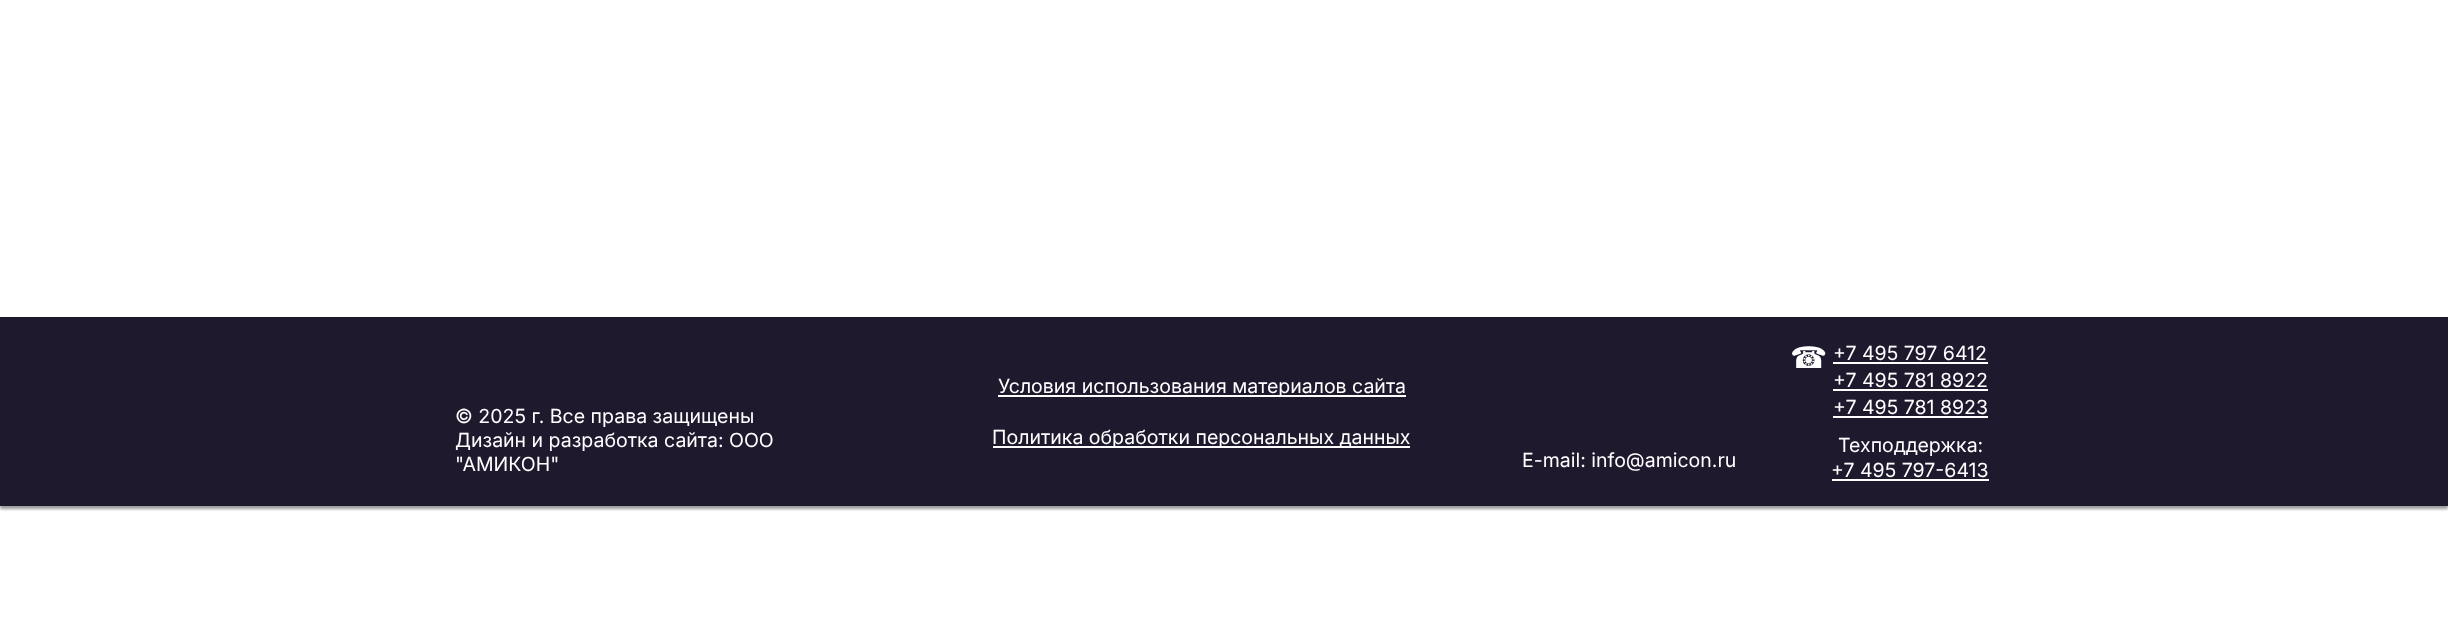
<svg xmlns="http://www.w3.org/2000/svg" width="2448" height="626">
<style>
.a{font:19.5px Inter;fill:#fff}
.b{font:30px DejaVu Sans;fill:#fff}
</style>
<rect width="100%" height="100%" fill="#fff"/>
<path fill="#00000066" filter="blur(1.5px)" d="M0 320h2448v189H0z"/>
<path fill="#1f192e" d="M0 317h2448v189H0z"/>
<path fill="#fff" d="M998 395h408v2H998z"/>
<path fill="#fff" d="M993 446h417v2H993z"/>
<path fill="#fff" d="M1833 362h155v2H1833z"/>
<path fill="#fff" d="M1833 389h155v2H1833z"/>
<path fill="#fff" d="M1833 416h155v2H1833z"/>
<path fill="#fff" d="M1832 479h157v2H1832z"/>
<text class="a" x="455" y="423">© 2025 г. Все права защищены</text>
<text class="a" x="455" y="447">Дизайн и разработка сайта: ООО</text>
<text class="a" x="455" y="471">"АМИКОН"</text>
<text class="a" x="998" y="393">Условия использования материалов сайта</text>
<text class="a" x="992" y="444">Политика обработки персональных данных</text>
<text class="a" x="1522" y="467">E-mail: info@amicon.ru</text>
<text class="b" x="1790" y="368">☎</text>
<text class="a" x="1833" y="360">+7 495 797 6412</text>
<text class="a" x="1833" y="387">+7 495 781 8922</text>
<text class="a" x="1833" y="414">+7 495 781 8923</text>
<text class="a" x="1838" y="452">Техподдержка:</text>
<text class="a" x="1831" y="477">+7 495 797-6413</text>
</svg>
